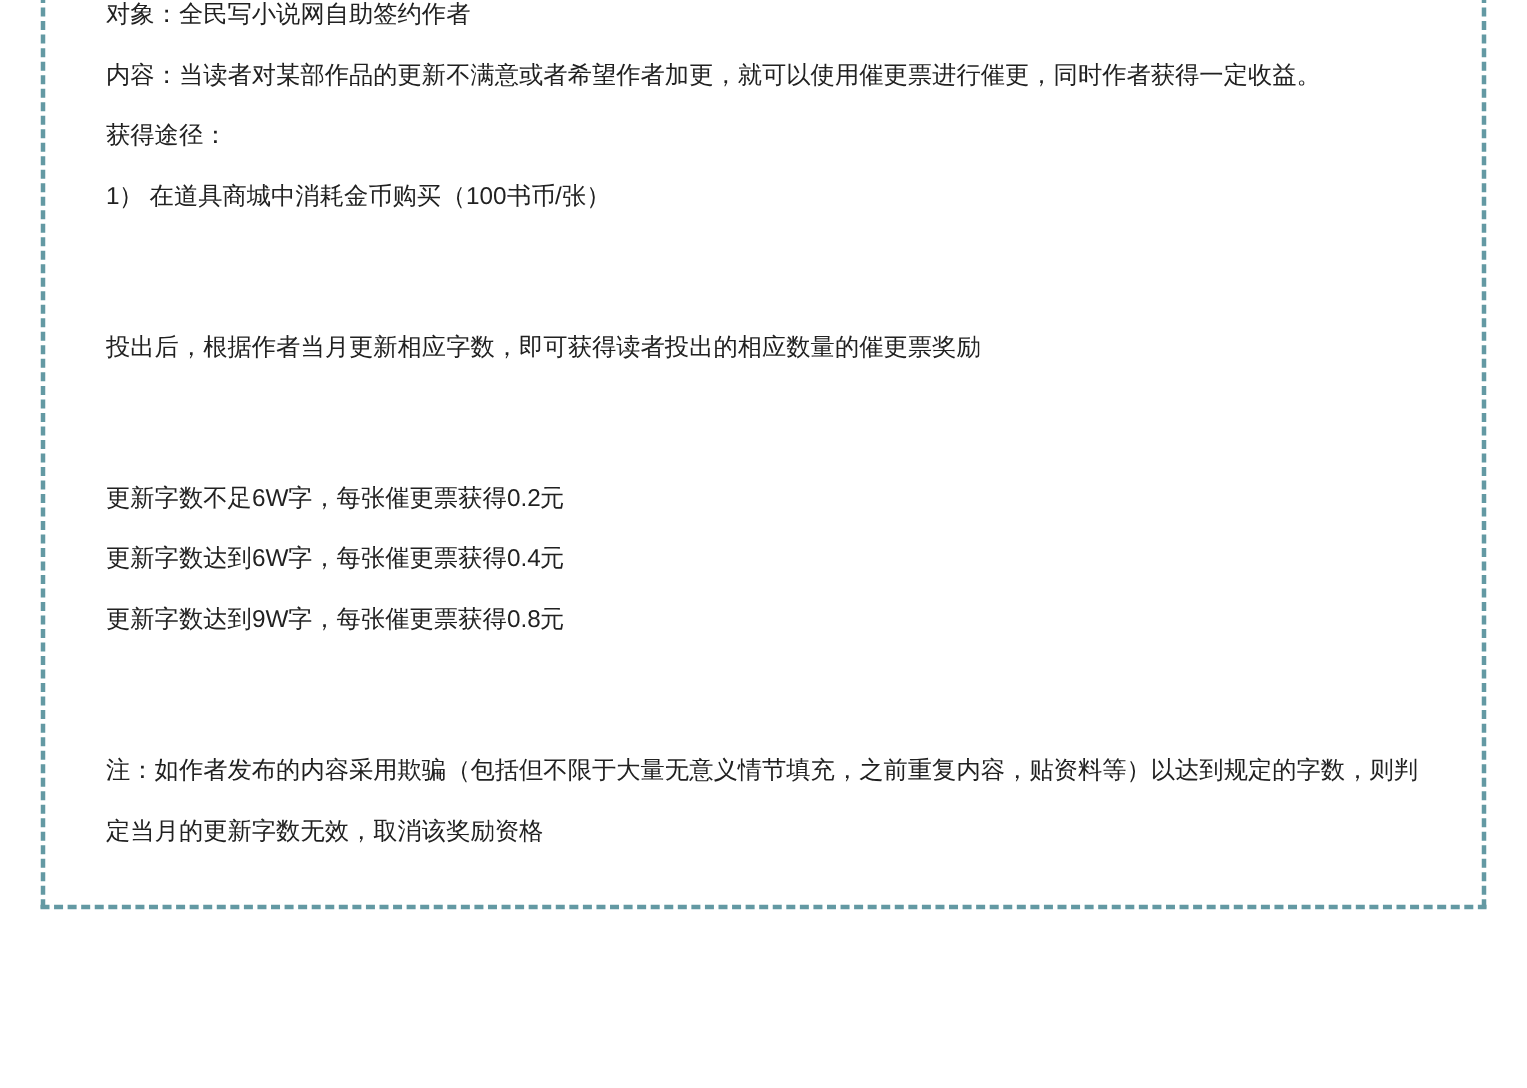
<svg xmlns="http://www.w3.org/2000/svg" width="1527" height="1088">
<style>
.a{font:500 24.3px WenQuanYi Zen Hei;fill:#212121}
.b{font:24.3px Liberation Sans;fill:#212121}
</style>
<rect width="100%" height="100%" fill="#fff"/>
<path fill="none" stroke="#6399a3" stroke-width="4.5" stroke-dasharray="9 4.51" d="M1484-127.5v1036.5"/>
<path fill="none" stroke="#6399a3" stroke-width="4.5" stroke-dasharray="9 4.56" d="M40.5 907h1446"/>
<path fill="none" stroke="#6399a3" stroke-width="4.5" stroke-dasharray="9 4.51" d="M43-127.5v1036.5"/>
<text class="a" x="106" y="22">对象：全民写小说网自助签约作者</text>
<text class="a" x="106" y="83">内容：当读者对某部作品的更新不满意或者希望作者加更，就可以使用催更票进行催更，同时作者获得一定收益。</text>
<text class="a" x="106" y="143">获得途径：</text>
<text class="b" x="106" y="204">1</text>
<text class="a" x="119" y="204" word-spacing="-1">） 在道具商城中消耗金币购买（</text>
<text class="b" x="466" y="204">100</text>
<text class="a" x="507" y="204">书币</text>
<text class="b" x="555" y="204">/</text>
<text class="a" x="562" y="204">张）</text>
<text class="a" x="106" y="355">投出后，根据作者当月更新相应字数，即可获得读者投出的相应数量的催更票奖励</text>
<text class="a" x="106" y="506">更新字数不足</text>
<text class="b" x="252" y="506">6W</text>
<text class="a" x="288" y="506">字，每张催更票获得</text>
<text class="b" x="507" y="506">0.2</text>
<text class="a" x="540" y="506">元</text>
<text class="a" x="106" y="566">更新字数达到</text>
<text class="b" x="252" y="566">6W</text>
<text class="a" x="288" y="566">字，每张催更票获得</text>
<text class="b" x="507" y="566">0.4</text>
<text class="a" x="540" y="566">元</text>
<text class="a" x="106" y="627">更新字数达到</text>
<text class="b" x="252" y="627">9W</text>
<text class="a" x="288" y="627">字，每张催更票获得</text>
<text class="b" x="507" y="627">0.8</text>
<text class="a" x="540" y="627">元</text>
<text class="a" x="106" y="778">注：如作者发布的内容采用欺骗（包括但不限于大量无意义情节填充，之前重复内容，贴资料等）以达到规定的字数，则判</text>
<text class="a" x="106" y="839">定当月的更新字数无效，取消该奖励资格</text>
</svg>
